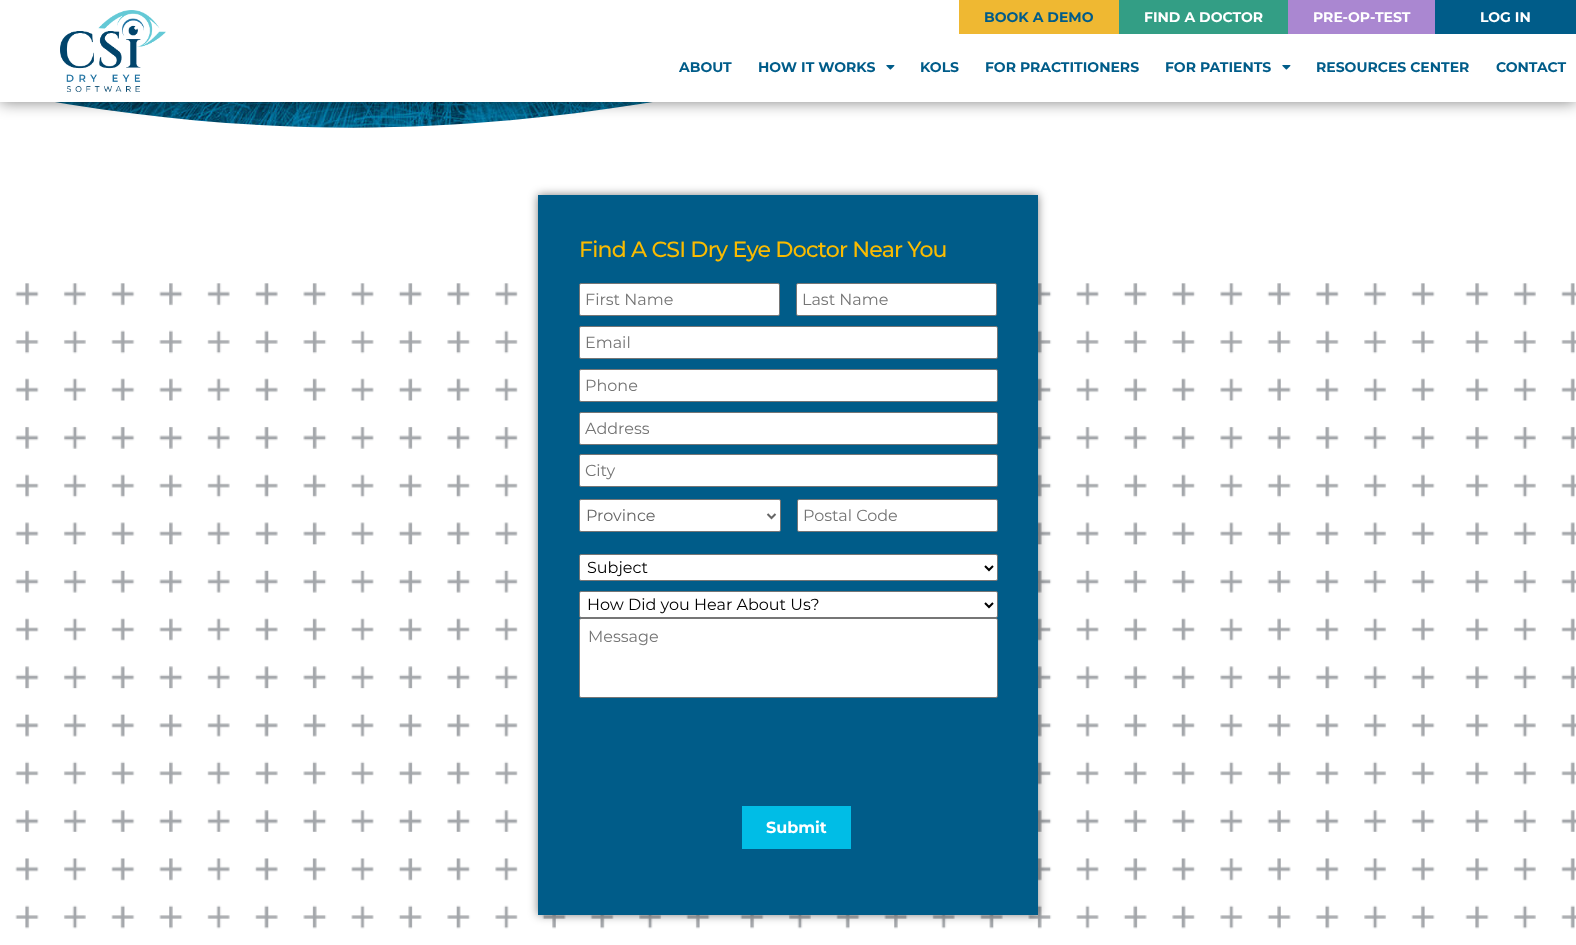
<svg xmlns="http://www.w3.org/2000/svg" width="1576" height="945">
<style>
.a{font:bold 14px Montserrat;fill:#005c89}
.b{font:bold 14px Montserrat;fill:#fff}
.c{font:500 22px Montserrat;letter-spacing:-0.8px;fill:#fabb00}
.d{font:16px Montserrat;fill:#757575}
.e{font:16px Montserrat;fill:#666}
.f{font:16px Montserrat;fill:#000}
.g{font:bold 16px Montserrat;fill:#fff}
</style>
<rect width="100%" height="100%" fill="#fff"/>
<image href="3.png" x="55" y="102" width="598" height="26"/>
<image href="4.png" x="0" y="102" width="1576" height="28"/>
<path fill="#00000080" filter="blur(8px)" d="M0 0h1576v102H0z"/>
<path fill="#fff" d="M0 0h1576v102H0z"/>
<image href="1.png" x="60" y="10" width="106" height="82"/>
<path fill="#efb832" d="M959 0h160v34H959z"/>
<path fill="#339e85" d="M1119 0h169v34H1119z"/>
<path fill="#aa87d1" d="M1288 0h147v34H1288z"/>
<path fill="#005c89" d="M1435 0h141v34H1435z"/>
<image href="2.png" x="886" y="65" width="9" height="5"/>
<image href="2.png" x="1282" y="65" width="9" height="5"/>
<image href="5.png" x="15" y="283" width="1561" height="646"/>
<path fill="#00000080" filter="blur(5px)" d="M538 195h500v720H538z"/>
<path fill="#005c89" d="M538 195h500v720H538z"/>
<rect fill="#fff" stroke="#767676" x="579.5" y="283.5" width="200" height="32" rx="1.5"/>
<rect fill="#fff" stroke="#767676" x="796.5" y="283.5" width="200" height="32" rx="1.5"/>
<rect fill="#fff" stroke="#767676" x="579.5" y="326.5" width="418" height="32" rx="1.5"/>
<rect fill="#fff" stroke="#767676" x="579.5" y="369.5" width="418" height="32" rx="1.5"/>
<rect fill="#fff" stroke="#767676" x="579.5" y="412.5" width="418" height="32" rx="1.5"/>
<rect fill="#fff" stroke="#767676" x="579.5" y="454.5" width="418" height="32" rx="1.5"/>
<rect fill="#fff" stroke="#767676" x="579.5" y="499.5" width="201" height="32" rx="1.5"/>
<path fill="none" stroke="#666" stroke-width="2" d="M767.5 514l4 4l4-4"/>
<rect fill="#fff" stroke="#767676" x="797.5" y="499.5" width="200" height="32" rx="1.5"/>
<rect fill="#fff" stroke="#767676" x="579.5" y="554.5" width="418" height="26" rx="1.5"/>
<path fill="none" stroke="#000" stroke-width="2" d="M985 566l4 4l4-4"/>
<rect fill="#fff" stroke="#767676" x="579.5" y="591.5" width="418" height="26" rx="1.5"/>
<path fill="none" stroke="#000" stroke-width="2" d="M985 603l4 4l4-4"/>
<rect fill="#fff" stroke="#767676" x="579.5" y="618.5" width="418" height="79" rx="1.5"/>
<path fill="#00bde6" d="M742 806h109v43H742z"/>
<text class="a" x="984" y="22">BOOK A DEMO</text>
<text class="b" x="1144" y="22">FIND A DOCTOR</text>
<text class="b" x="1313" y="22">PRE-OP-TEST</text>
<text class="b" x="1480" y="22">LOG IN</text>
<text class="a" x="679" y="72">ABOUT</text>
<text class="a" x="758" y="72">HOW IT WORKS</text>
<text class="a" x="920" y="72">KOLS</text>
<text class="a" x="985" y="72">FOR PRACTITIONERS</text>
<text class="a" x="1165" y="72">FOR PATIENTS</text>
<text class="a" x="1316" y="72">RESOURCES CENTER</text>
<text class="a" x="1496" y="72">CONTACT</text>
<text class="c" x="579" y="257">Find A CSI Dry Eye Doctor Near You</text>
<text class="d" x="585" y="305">First Name</text>
<text class="d" x="802" y="305">Last Name</text>
<text class="d" x="585" y="348">Email</text>
<text class="d" x="585" y="391">Phone</text>
<text class="d" x="585" y="434">Address</text>
<text class="d" x="585" y="476">City</text>
<text class="e" x="586" y="521">Province</text>
<text class="d" x="803" y="521">Postal Code</text>
<text class="f" x="587" y="573">Subject</text>
<text class="f" x="587" y="610">How Did you Hear About Us?</text>
<text class="d" x="588" y="642">Message</text>
<text class="g" x="766" y="833">Submit</text>
</svg>
